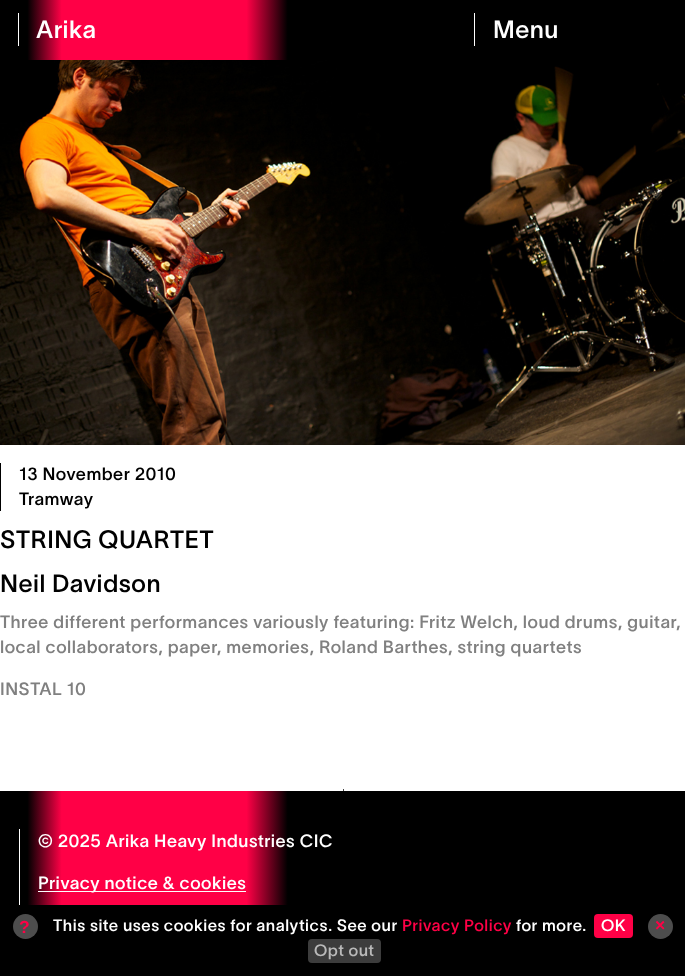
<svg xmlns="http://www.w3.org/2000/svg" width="685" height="976">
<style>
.a{font:500 24.5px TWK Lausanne;letter-spacing:0.53px;fill:#fff}
.b{font:500 17.5px TWK Lausanne;letter-spacing:0.53px;fill:#000}
.c{font:500 24.5px TWK Lausanne;letter-spacing:0.53px;fill:#000}
.d{font:500 17.5px TWK Lausanne;letter-spacing:0.53px;fill:#808080}
.e{font:500 17.5px TWK Lausanne;letter-spacing:0.53px;fill:#fff}
.f{font:bold 17.5px Liberation Sans;letter-spacing:0.53px;fill:#ff0046}
.g{font:500 16.25px TWK Lausanne;letter-spacing:0.53px;fill:#fff}
.h{font:500 16.25px TWK Lausanne;letter-spacing:0.53px;fill:#ff0046}
.i{font:500 16.25px TWK Lausanne;letter-spacing:0.53px;fill:#b9b9b9}
</style>
<defs>
<linearGradient id="g1" gradientUnits="userSpaceOnUse" x1="0" y1="30" x2="685" y2="30"><stop offset="0" stop-color="#000"/><stop offset="0.04" stop-color="#000"/><stop offset="0.09" stop-color="#ff0046"/><stop offset="0.36" stop-color="#ff0046"/><stop offset="0.42" stop-color="#000"/></linearGradient>
<linearGradient id="g2" gradientUnits="userSpaceOnUse" x1="0" y1="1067" x2="685" y2="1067"><stop offset="0" stop-color="#000"/><stop offset="0.04" stop-color="#000"/><stop offset="0.09" stop-color="#ff0046"/><stop offset="0.36" stop-color="#ff0046"/><stop offset="0.42" stop-color="#000"/></linearGradient>
</defs>
<rect width="100%" height="100%" fill="#fff"/>
<path fill="url(#g1)" d="M0 0h685v60H0z"/>
<path fill="#fff" d="M18 13h1v33H18z"/>
<path fill="#fff" d="M474 13h1v33H474z"/>
<image href="1.png" x="0" y="60" width="685" height="385"/>
<path fill="#000" d="M0 463h1v48H0z"/>
<path fill="#444" d="M343 789h1v3H343z"/>
<path fill="url(#g2)" d="M0 791h685v114H0z"/>
<path fill="#fff" d="M19 829h1v76H19z"/>
<path fill="#fff" d="M38 891h208v1H38z"/>
<path fill="#000" d="M0 905h685v71H0z"/>
<circle fill="#4d4d4d" cx="25.5" cy="926.5" r="12.5"/>
<rect fill="#ff0046" x="594" y="914" width="39" height="24" rx="4"/>
<rect fill="#3c3c3c" x="308" y="939" width="73" height="24" rx="4"/>
<circle fill="#4d4d4d" cx="660.5" cy="926.5" r="12.5"/>
<text class="a" x="36" y="38">Arika</text>
<text class="a" x="493" y="38">Menu</text>
<text class="b" x="19" y="480">13 November 2010</text>
<text class="b" x="19" y="505">Tramway</text>
<text class="c" x="0" y="548">STRING QUARTET</text>
<text class="c" x="0" y="592">Neil Davidson</text>
<text class="d" x="0" y="628">Three different performances variously featuring: Fritz Welch, loud drums, guitar,</text>
<text class="d" x="0" y="653">local collaborators, paper, memories, Roland Barthes, string quartets</text>
<text class="d" x="0" y="695">INSTAL 10</text>
<text class="e" x="38" y="847">© 2025 Arika Heavy Industries CIC</text>
<text class="e" x="38" y="889">Privacy notice &amp; cookies</text>
<text class="f" x="19" y="933">?</text>
<text class="g" x="53" y="931">This site uses cookies for analytics. See our</text>
<text class="h" x="402" y="931">Privacy Policy</text>
<text class="g" x="516" y="931">for more.</text>
<text class="g" x="601" y="931">OK</text>
<text class="i" x="314" y="956">Opt out</text>
<text class="f" x="655" y="931">×</text>
</svg>
